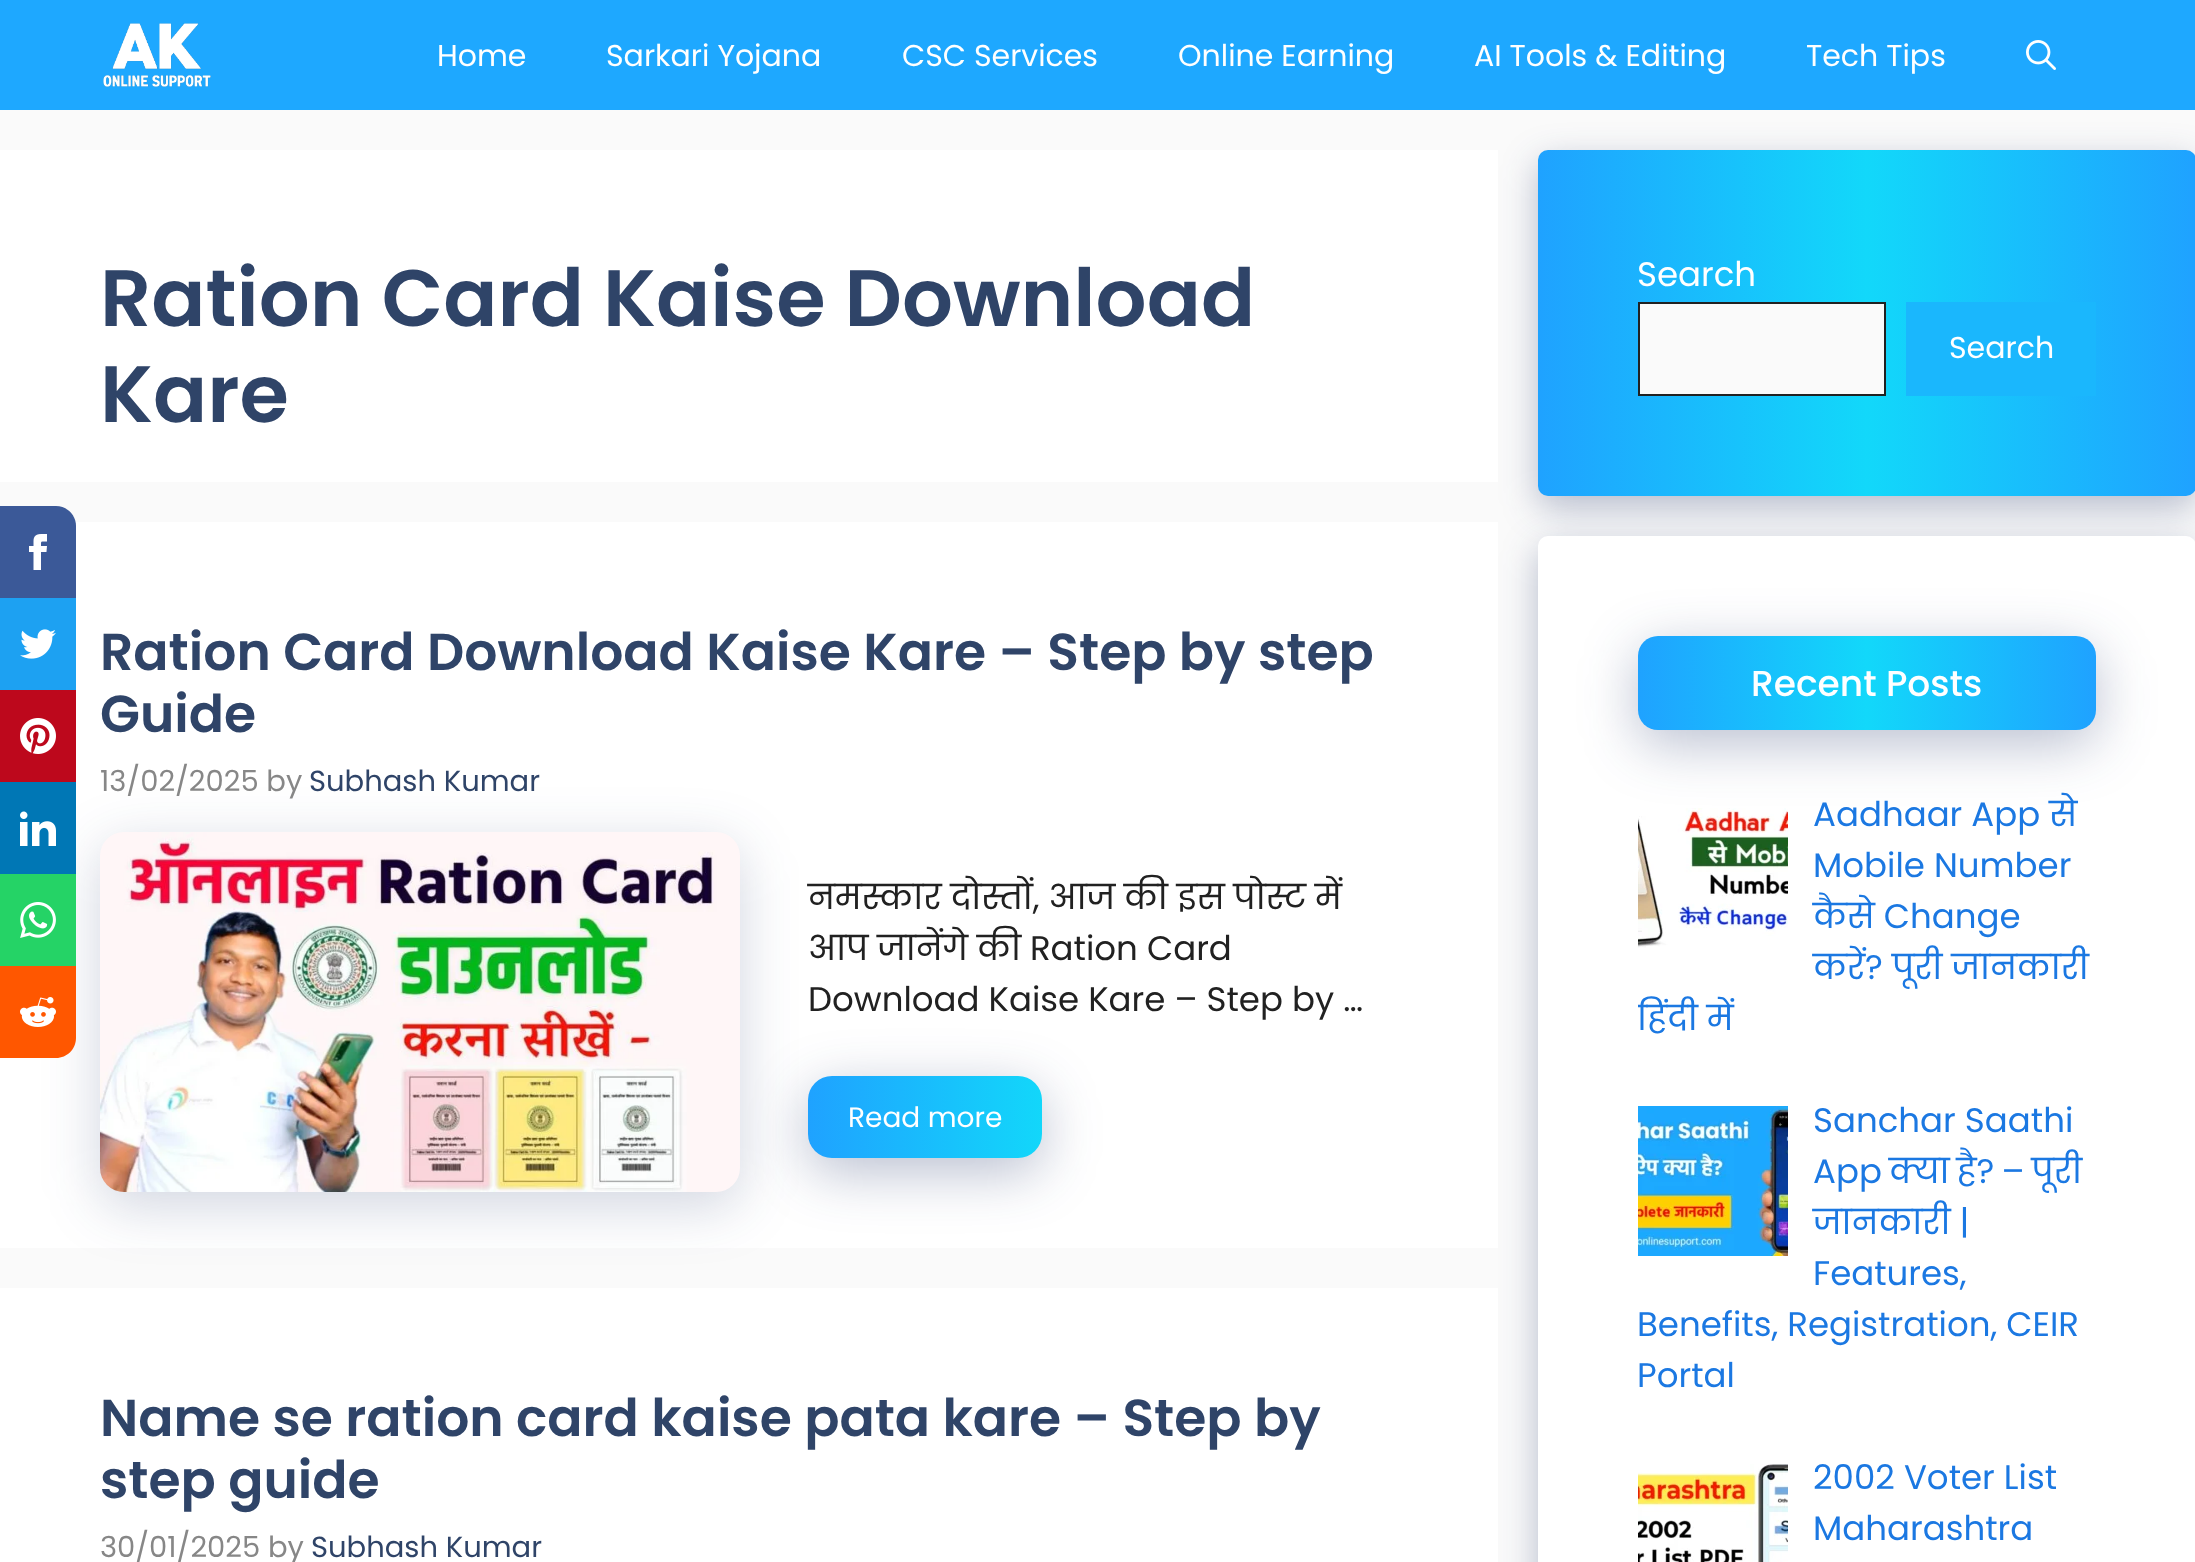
<svg xmlns="http://www.w3.org/2000/svg" width="2195" height="1562">
<style>
.a{font:30px Poppins;fill:#fff}
.b{font:600 80px Poppins;fill:#2f4468}
.c{font:600 52px Poppins;fill:#2f4468}
.d{font:29px Poppins;fill:#878787}
.e{font:29px Poppins;fill:#2f4468}
.f{font:34px Poppins;fill:#212121}
.g{font:28px Poppins;fill:#fff}
.h{font:34px Poppins;fill:#fff}
.i{font:500 36px Poppins;fill:#fff}
.j{font:34px Poppins;fill:#1b78e2}
</style>
<defs>
<linearGradient id="g1" gradientUnits="userSpaceOnUse" x1="808" y1="1117" x2="1276" y2="1117"><stop offset="0" stop-color="#1fa2ff"/><stop offset="0.51" stop-color="#12d8fa"/><stop offset="1" stop-color="#1fa2ff"/></linearGradient>
<linearGradient id="g2" gradientUnits="userSpaceOnUse" x1="1538" y1="323" x2="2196" y2="323"><stop offset="0" stop-color="#1fa2ff"/><stop offset="0.5" stop-color="#12d8fa"/><stop offset="1" stop-color="#1fa2ff"/></linearGradient>
<linearGradient id="g3" gradientUnits="userSpaceOnUse" x1="1638" y1="683" x2="2096" y2="683"><stop offset="0" stop-color="#1fa2ff"/><stop offset="0.5" stop-color="#12d8fa"/><stop offset="1" stop-color="#1fa2ff"/></linearGradient>
<clipPath id="clip1"><path d="M1638 790h458v256H1638z"/></clipPath>
</defs>
<rect width="100%" height="100%" fill="#fafafa"/>
<path fill="#1ea8ff" d="M0 0h2195v110H0z"/>
<image href="1.png" x="103" y="23" width="108" height="64"/>
<image href="2.png" x="2026" y="40" width="30" height="30"/>
<path fill="#fff" d="M0 522h1498v726H0z"/>
<path fill="#3b5998" d="M0 506h56c11 0 20 9 20 20v72h-76z"/>
<image href="3.png" x="29" y="534" width="18" height="36"/>
<path fill="#1da1f2" d="M0 598h76v92H0z"/>
<image href="4.png" x="20" y="629" width="36" height="30"/>
<path fill="#fff" d="M0 1288h1498v274H0z"/>
<rect fill="#172b6333" filter="blur(28px)" x="100" y="846" width="640" height="360" rx="24"/>
<path fill="#bd081c" d="M0 690h76v92H0z"/>
<image href="5.png" x="20" y="718" width="36" height="36"/>
<path fill="#0077b5" d="M0 782h76v92H0z"/>
<image href="6.png" x="20" y="811" width="36" height="35"/>
<path fill="#25d366" d="M0 874h76v92H0z"/>
<image href="7.png" x="20" y="902" width="36" height="36"/>
<path fill="#ff5700" d="M0 966h76v72c0 11-9 20-20 20h-56z"/>
<image href="8.png" x="20" y="997" width="36" height="30"/>
<path fill="#fff" d="M0 150h1498v332H0z"/>
<image href="9.png" x="100" y="832" width="640" height="360"/>
<rect fill="#172b634d" filter="blur(28px)" x="808" y="1090" width="234" height="82" rx="24"/>
<rect fill="url(#g1)" x="808" y="1076" width="234" height="82" rx="24"/>
<rect fill="#172b634d" filter="blur(18px)" x="1538" y="162" width="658" height="346" rx="10"/>
<rect fill="url(#g2)" x="1538" y="150" width="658" height="346" rx="10"/>
<path fill="#fafafa" stroke="#212121" stroke-width="2" d="M1639 303h246v92H1639z"/>
<path fill="#1ab7fd" d="M1906 302h190v94H1906z"/>
<rect fill="#172b634d" filter="blur(18px)" x="1538" y="548" width="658" height="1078" rx="10"/>
<rect fill="#fff" x="1538" y="536" width="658" height="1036" rx="10"/>
<rect fill="#172b634d" filter="blur(28px)" x="1638" y="650" width="458" height="94" rx="20"/>
<rect fill="url(#g3)" x="1638" y="636" width="458" height="94" rx="20"/>
<image href="10.png" x="1638" y="808" width="150" height="140"/>
<image href="11.png" x="1638" y="1106" width="150" height="150"/>
<image href="12.png" x="1638" y="1464" width="150" height="98"/>
<text class="a" x="437" y="66">Home</text>
<text class="a" x="606" y="66">Sarkari Yojana</text>
<text class="a" x="902" y="66">CSC Services</text>
<text class="a" x="1178" y="66">Online Earning</text>
<text class="a" x="1474" y="66">AI Tools &amp; Editing</text>
<text class="a" x="1806" y="66">Tech Tips</text>
<text class="b" x="100" y="326">Ration Card Kaise Download</text>
<text class="b" x="100" y="422">Kare</text>
<text class="c" x="100" y="670">Ration Card Download Kaise Kare – Step by step</text>
<text class="c" x="100" y="732">Guide</text>
<text class="d" x="100" y="791">13/02/2025 by</text>
<text class="e" x="309" y="791">Subhash Kumar</text>
<text class="f" x="808" y="909">नमस्कार दोस्तों, आज की इस पोस्ट में</text>
<text class="f" x="808" y="960">आप जानेंगे की Ration Card</text>
<text class="f" x="808" y="1011">Download Kaise Kare – Step by …</text>
<text class="g" x="848" y="1127">Read more</text>
<text class="c" x="100" y="1436">Name se ration card kaise pata kare – Step by</text>
<text class="c" x="100" y="1498">step guide</text>
<text class="d" x="100" y="1557">30/01/2025 by</text>
<text class="e" x="311" y="1557">Subhash Kumar</text>
<text class="h" x="1637" y="286">Search</text>
<text class="a" x="1949" y="358">Search</text>
<text class="i" x="1751" y="696">Recent Posts</text>
<text class="j" x="1813" y="826">Aadhaar App से</text>
<text class="j" x="1813" y="877">Mobile Number</text>
<text class="j" x="1813" y="928">कैसे Change</text>
<text class="j" x="1813" y="979">करें? पूरी जानकारी</text>
<g clip-path="url(#clip1)">
<text class="j" x="1637" y="1030">हिंदी में</text>
</g>
<text class="j" x="1813" y="1132">Sanchar Saathi</text>
<text class="j" x="1813" y="1183" word-spacing="-2">App क्या है? – पूरी</text>
<text class="j" x="1813" y="1234">जानकारी |</text>
<text class="j" x="1813" y="1285">Features,</text>
<text class="j" x="1637" y="1336">Benefits, Registration, CEIR</text>
<text class="j" x="1637" y="1387">Portal</text>
<text class="j" x="1813" y="1489">2002 Voter List</text>
<text class="j" x="1813" y="1540">Maharashtra</text>
</svg>
